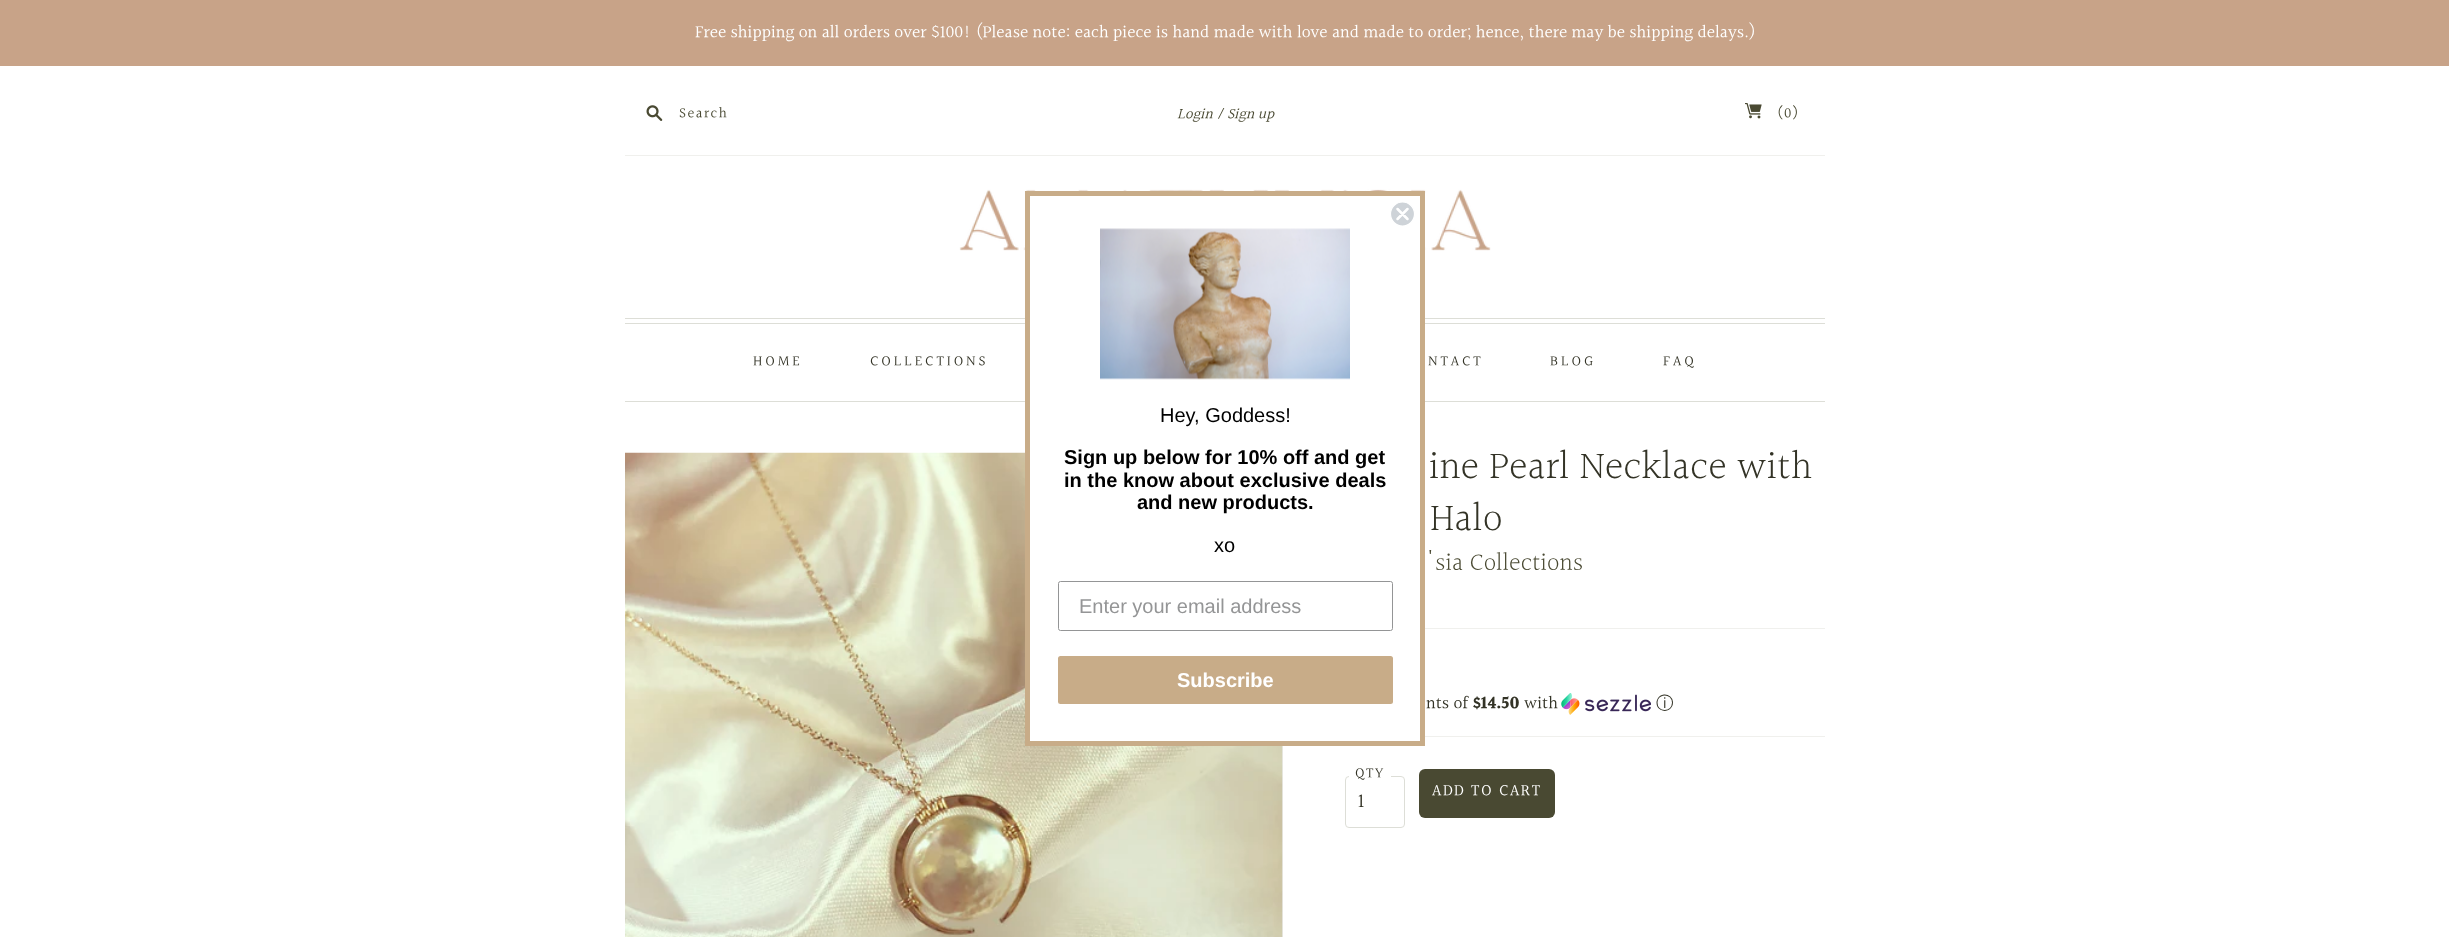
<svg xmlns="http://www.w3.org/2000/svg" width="2449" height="937">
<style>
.a{font:17.5px Halant;fill:#fff}
.b{font:14.5px Halant;letter-spacing:1.5px;fill:#494932}
.c{font:italic 15px Halant;fill:#494932}
.d{font:14.5px Halant;letter-spacing:2.9px;fill:#333326}
.e{font:300 40px Halant;fill:#333326}
.f{font:300 25px Halant;fill:#494932}
.g{font:17.5px Halant;fill:#333326}
.h{font:bold 17.5px Halant;fill:#333326}
.i{font:500 17.5px WenQuanYi Zen Hei;fill:#333326}
.j{font:14.5px Halant;letter-spacing:1.5px;fill:#333326}
.k{font:20px Halant;fill:#333326}
.l{font:16.25px Halant;letter-spacing:1.6px;fill:#fff}
.m{font:20px Liberation Sans;fill:#000}
.n{font:bold 20px Liberation Sans;fill:#000}
.o{font:20px Liberation Sans;fill:#949596}
.p{font:bold 20px Liberation Sans;fill:#fff}
</style>
<defs>
<clipPath id="clip1"><path d="M1390 201h25v25H1390z"/></clipPath>
</defs>
<rect width="100%" height="100%" fill="#fff"/>
<path fill="#c8a388" d="M0 0h2449v66H0z"/>
<path fill="#f0f0ed" d="M625 155h1200v1H625z"/>
<image href="1.png" x="646" y="105" width="17" height="16"/>
<image href="2.png" x="1745" y="103" width="17" height="16"/>
<image href="3.png" x="959" y="189" width="532" height="62"/>
<path fill="#ddded7" d="M625 323h1200v1H625z"/>
<path fill="#ddded7" d="M625 318h1200v1H625z"/>
<path fill="#ddded7" d="M625 401h400v1H625z"/>
<path fill="#ebebea" d="M1282 746h1v191H1282z"/>
<image href="4.png" x="625" y="452" width="658" height="485"/>
<path fill="#ddded7" d="M1425 401h400v1H1425z"/>
<path fill="#f0f0ed" d="M1425 628h400v1H1425z"/>
<image href="5.png" x="1561" y="693" width="90" height="22"/>
<path fill="#f0f0ed" d="M1425 736h400v1H1425z"/>
<rect fill="none" stroke="#ddded7" x="1345.5" y="776.5" width="59" height="51" rx="3.5"/>
<path fill="#fff" d="M1349 776h42v1H1349z"/>
<rect fill="#494932" x="1419" y="769" width="136" height="49" rx="6"/>
<path fill="#fff" stroke="#c8ac88" stroke-width="5" d="M1027.5 193.5h395v550H1027.5z"/>
<circle fill="#ced3d8" cx="1402.5" cy="214" r="12"/>
<g clip-path="url(#clip1)">
<circle fill="none" stroke="#fff" stroke-width="1.2" cx="1402.5" cy="214" r="12"/>
</g>
<path fill="none" stroke="#fff" stroke-width="2.5" stroke-linecap="round" stroke-linejoin="round" d="M1397.5 209l10 10m-10 0l10-10z"/>
<image href="6.png" x="1100" y="228" width="250" height="152"/>
<rect fill="none" stroke="#949596" x="1058.5" y="581.5" width="334" height="49" rx="2"/>
<rect fill="#c8ac88" x="1058" y="656" width="335" height="48" rx="2.5"/>
<text class="a" x="695" y="38">Free shipping on all orders over $100! (Please note: each piece is hand made with love and made to order; hence, there may be shipping delays.)</text>
<text class="b" x="679" y="118">Search</text>
<text class="c" x="1177" y="119">Login / Sign up</text>
<text class="b" x="1777" y="118">(0)</text>
<text class="d" x="753" y="366">HOME</text>
<text class="d" x="870" y="366">COLLECTIONS</text>
<text class="d" x="1428" y="366">NTACT</text>
<text class="d" x="1550" y="366">BLOG</text>
<text class="d" x="1663" y="366">FAQ</text>
<text class="e" x="1429" y="480">ine Pearl Necklace with</text>
<text class="e" x="1430" y="532">Halo</text>
<text class="f" x="1425" y="571">'sia Collections</text>
<text class="g" x="1426" y="709">nts of</text>
<text class="h" x="1473" y="709">$14.50</text>
<text class="g" x="1524" y="709">with</text>
<text class="i" x="1656" y="709">ⓘ</text>
<text class="j" x="1355" y="778">QTY</text>
<text class="k" x="1358" y="808">1</text>
<text class="l" x="1432" y="796">ADD TO CART</text>
<text class="m" x="1160" y="422">Hey, Goddess!</text>
<text class="n" x="1064" y="464">Sign up below for 10% off and get</text>
<text class="n" x="1064" y="487">in the know about exclusive deals</text>
<text class="n" x="1137" y="509">and new products.</text>
<text class="m" x="1214" y="552">xo</text>
<text class="o" x="1079" y="613">Enter your email address</text>
<text class="p" x="1177" y="687">Subscribe</text>
</svg>
